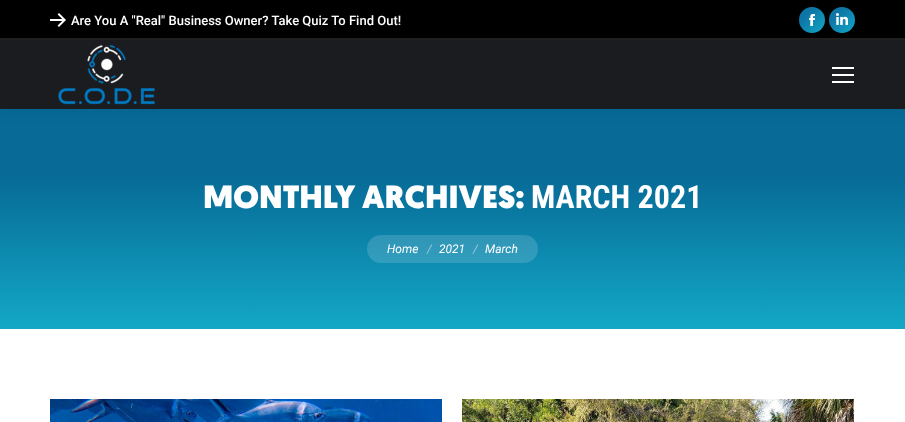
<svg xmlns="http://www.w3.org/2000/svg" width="905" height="422">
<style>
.a{font:500 13px Roboto;fill:#fff}
.b{font:900 32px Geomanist;fill:#fff}
.c{font:bold 32px Roboto Condensed;fill:#fff}
.d{font:italic 12px Roboto;fill:#fff}
.e{font:italic 12px Roboto;fill:#98ccdc}
</style>
<defs>
<linearGradient id="g1" gradientUnits="userSpaceOnUse" x1="453" y1="109" x2="453" y2="329"><stop offset="0.3" stop-color="#076a97"/><stop offset="1" stop-color="#13a8c6"/></linearGradient>
<linearGradient id="g2" gradientUnits="userSpaceOnUse" x1="799" y1="7" x2="825" y2="33"><stop offset="0.3" stop-color="#0d76a6"/><stop offset="1" stop-color="#13a8c6"/></linearGradient>
<linearGradient id="g3" gradientUnits="userSpaceOnUse" x1="829" y1="7" x2="855" y2="33"><stop offset="0.3" stop-color="#0d76a6"/><stop offset="1" stop-color="#13a8c6"/></linearGradient>
</defs>
<rect width="100%" height="100%" fill="#fff"/>
<path fill="url(#g1)" d="M0 109h905v220H0z"/>
<path fill="#00000012" filter="blur(7.5px)" d="M-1 -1h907v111H-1z"/>
<path fill="#1a1c20" d="M0 40h905v69H0z"/>
<path fill="#000" d="M0 0h905v38H0z"/>
<image href="1.png" x="50" y="13" width="16" height="14"/>
<circle fill="url(#g2)" cx="812" cy="20" r="13"/>
<image href="2.png" x="809" y="14" width="6" height="12"/>
<circle fill="url(#g3)" cx="842" cy="20" r="13"/>
<image href="3.png" x="836" y="13" width="12" height="12"/>
<path fill="#1f1f1f" d="M0 38h905v2H0z"/>
<image href="4.png" x="58" y="44" width="97" height="61"/>
<path fill="#fff" d="M832 67h22v2H832z"/>
<path fill="#fff" d="M832 74h22v2H832z"/>
<path fill="#fff" d="M832 81h22v2H832z"/>
<rect fill="#ffffff26" x="367" y="235" width="171" height="28" rx="14"/>
<image href="5.png" x="50" y="399" width="392" height="23"/>
<image href="6.png" x="462" y="399" width="392" height="23"/>
<text class="a" x="71" y="25">Are You A "Real" Business Owner? Take Quiz To Find Out!</text>
<text class="b" x="203" y="208">MONTHLY ARCHIVES:</text>
<text class="c" x="531" y="208">MARCH 2021</text>
<text class="d" x="387" y="253">Home</text>
<text class="e" x="427" y="253">/</text>
<text class="d" x="439" y="253">2021</text>
<text class="e" x="473" y="253">/</text>
<text class="d" x="485" y="253">March</text>
</svg>
